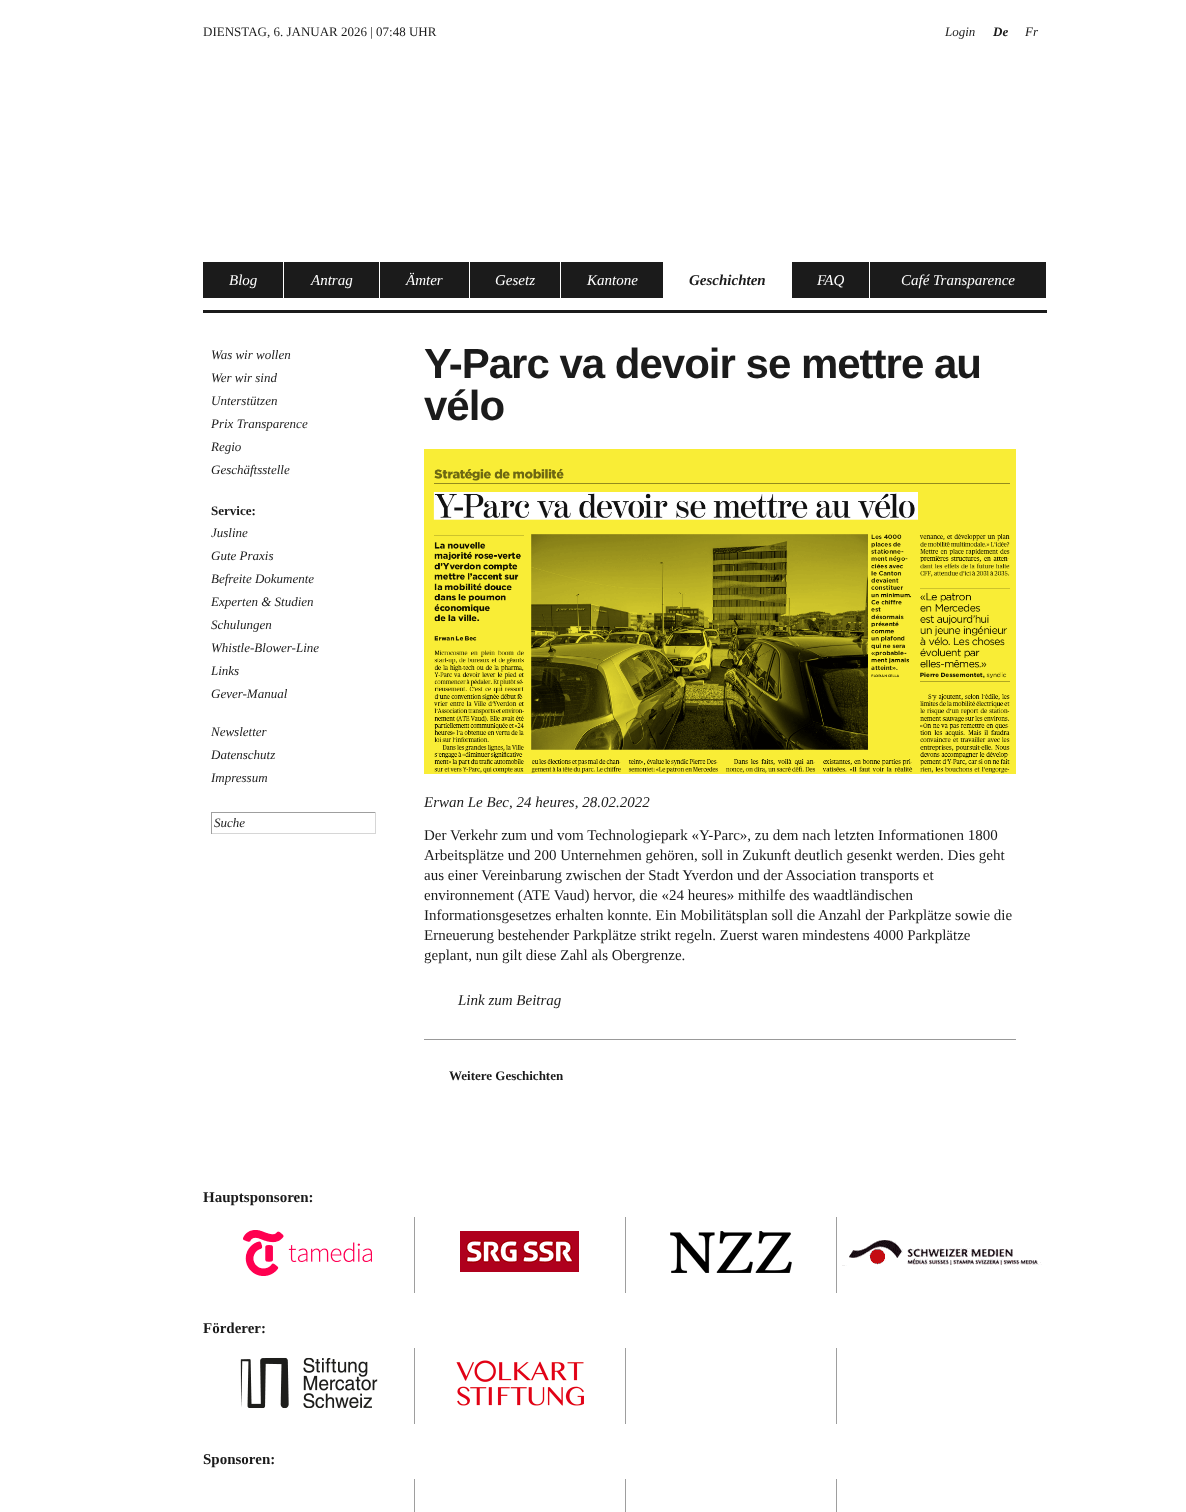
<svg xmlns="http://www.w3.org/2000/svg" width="1186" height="1512">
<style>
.a{font:13px Liberation Serif;fill:#1b1b1b}
.b{font:italic 13px Liberation Serif;fill:#1b1b1b}
.c{font:italic bold 13px Liberation Serif;fill:#1b1b1b}
.d{font:italic 15px Liberation Serif;fill:#fff}
.e{font:italic bold 15px Liberation Serif;fill:#1b1b1b}
.f{font:bold 13px Liberation Serif;fill:#1b1b1b}
.g{font:bold 42px Liberation Sans;letter-spacing:-1px;fill:#1b1b1b}
.h{font:italic 15px Liberation Serif;fill:#1b1b1b}
.i{font:15px Liberation Serif;fill:#1b1b1b}
.j{font:bold 15px Liberation Serif;fill:#1b1b1b}
</style>
<rect width="100%" height="100%" fill="#fff"/>
<path fill="#1b1b1b" d="M203 262h80v36H203z"/>
<path fill="#1b1b1b" d="M284 262h95v36H284z"/>
<path fill="#1b1b1b" d="M380 262h89v36H380z"/>
<path fill="#1b1b1b" d="M470 262h90v36H470z"/>
<path fill="#1b1b1b" d="M561 262h102v36H561z"/>
<path fill="#1b1b1b" d="M792 262h77v36H792z"/>
<path fill="#1b1b1b" d="M870 262h176v36H870z"/>
<path fill="#1b1b1b" d="M203 310h844v3H203z"/>
<path fill="#9f9f9f" d="M211 812h165v1H211z"/>
<path fill="#d6d6d6" d="M375 812h1v22H375z"/>
<path fill="#d6d6d6" d="M211 833h165v1H211z"/>
<path fill="#9f9f9f" d="M211 812h1v22H211z"/>
<image href="1.png" x="424" y="449" width="592" height="325"/>
<path fill="#999" d="M424 1039h592v1H424z"/>
<path fill="#9e9e9e" d="M414 1216h1v77H414z"/>
<path fill="#fff" d="M414 1216h1v1H414z"/>
<image href="2.png" x="243" y="1230" width="129" height="46"/>
<path fill="#9e9e9e" d="M625 1216h1v77H625z"/>
<path fill="#fff" d="M625 1216h1v1H625z"/>
<image href="3.png" x="460" y="1231" width="119" height="41"/>
<path fill="#9e9e9e" d="M836 1216h1v77H836z"/>
<path fill="#fff" d="M836 1216h1v1H836z"/>
<image href="4.png" x="670" y="1231" width="122" height="42"/>
<image href="5.png" x="842" y="1240" width="200" height="26"/>
<path fill="#9e9e9e" d="M414 1347h1v77H414z"/>
<path fill="#fff" d="M414 1347h1v1H414z"/>
<image href="6.png" x="240" y="1357" width="138" height="52"/>
<path fill="#9e9e9e" d="M625 1347h1v77H625z"/>
<path fill="#fff" d="M625 1347h1v1H625z"/>
<image href="7.png" x="456" y="1360" width="128" height="46"/>
<path fill="#9e9e9e" d="M836 1347h1v77H836z"/>
<path fill="#fff" d="M836 1347h1v1H836z"/>
<path fill="#9e9e9e" d="M625 1478h1v34H625z"/>
<path fill="#fff" d="M625 1478h1v1H625z"/>
<path fill="#9e9e9e" d="M414 1478h1v34H414z"/>
<path fill="#fff" d="M414 1478h1v1H414z"/>
<path fill="#9e9e9e" d="M836 1478h1v34H836z"/>
<path fill="#fff" d="M836 1478h1v1H836z"/>
<text class="a" x="203" y="36">DIENSTAG, 6. JANUAR 2026 | 07:48 UHR</text>
<text class="b" x="945" y="36">Login</text>
<text class="c" x="993" y="36">De</text>
<text class="b" x="1025" y="36">Fr</text>
<text class="d" x="229" y="285">Blog</text>
<text class="d" x="311" y="285">Antrag</text>
<text class="d" x="406" y="285">Ämter</text>
<text class="d" x="495" y="285">Gesetz</text>
<text class="d" x="587" y="285">Kantone</text>
<text class="e" x="689" y="285">Geschichten</text>
<text class="d" x="817" y="285">FAQ</text>
<text class="d" x="901" y="285">Café Transparence</text>
<text class="b" x="211" y="359">Was wir wollen</text>
<text class="b" x="211" y="382">Wer wir sind</text>
<text class="b" x="211" y="405">Unterstützen</text>
<text class="b" x="211" y="428">Prix Transparence</text>
<text class="b" x="211" y="451">Regio</text>
<text class="b" x="211" y="474">Geschäftsstelle</text>
<text class="f" x="211" y="515">Service:</text>
<text class="b" x="211" y="537">Jusline</text>
<text class="b" x="211" y="560">Gute Praxis</text>
<text class="b" x="211" y="583">Befreite Dokumente</text>
<text class="b" x="211" y="606">Experten &amp; Studien</text>
<text class="b" x="211" y="629">Schulungen</text>
<text class="b" x="211" y="652">Whistle-Blower-Line</text>
<text class="b" x="211" y="675">Links</text>
<text class="b" x="211" y="698">Gever-Manual</text>
<text class="b" x="211" y="736">Newsletter</text>
<text class="b" x="211" y="759">Datenschutz</text>
<text class="b" x="211" y="782">Impressum</text>
<text class="b" x="214" y="827">Suche</text>
<text class="g" x="424" y="378">Y-Parc va devoir se mettre au</text>
<text class="g" x="424" y="420">vélo</text>
<text class="h" x="424" y="807">Erwan Le Bec, 24 heures, 28.02.2022</text>
<text class="i" x="424" y="840">Der Verkehr zum und vom Technologiepark «Y-Parc», zu dem nach letzten Informationen 1800</text>
<text class="i" x="424" y="860">Arbeitsplätze und 200 Unternehmen gehören, soll in Zukunft deutlich gesenkt werden. Dies geht</text>
<text class="i" x="424" y="880">aus einer Vereinbarung zwischen der Stadt Yverdon und der Association transports et</text>
<text class="i" x="424" y="900">environnement (ATE Vaud) hervor, die «24 heures» mithilfe des waadtländischen</text>
<text class="i" x="424" y="920">Informationsgesetzes erhalten konnte. Ein Mobilitätsplan soll die Anzahl der Parkplätze sowie die</text>
<text class="i" x="424" y="940">Erneuerung bestehender Parkplätze strikt regeln. Zuerst waren mindestens 4000 Parkplätze</text>
<text class="i" x="424" y="960">geplant, nun gilt diese Zahl als Obergrenze.</text>
<text class="h" x="458" y="1005">Link zum Beitrag</text>
<text class="f" x="449" y="1080">Weitere Geschichten</text>
<text class="j" x="203" y="1202">Hauptsponsoren:</text>
<text class="j" x="203" y="1333">Förderer:</text>
<text class="j" x="203" y="1464">Sponsoren:</text>
</svg>
